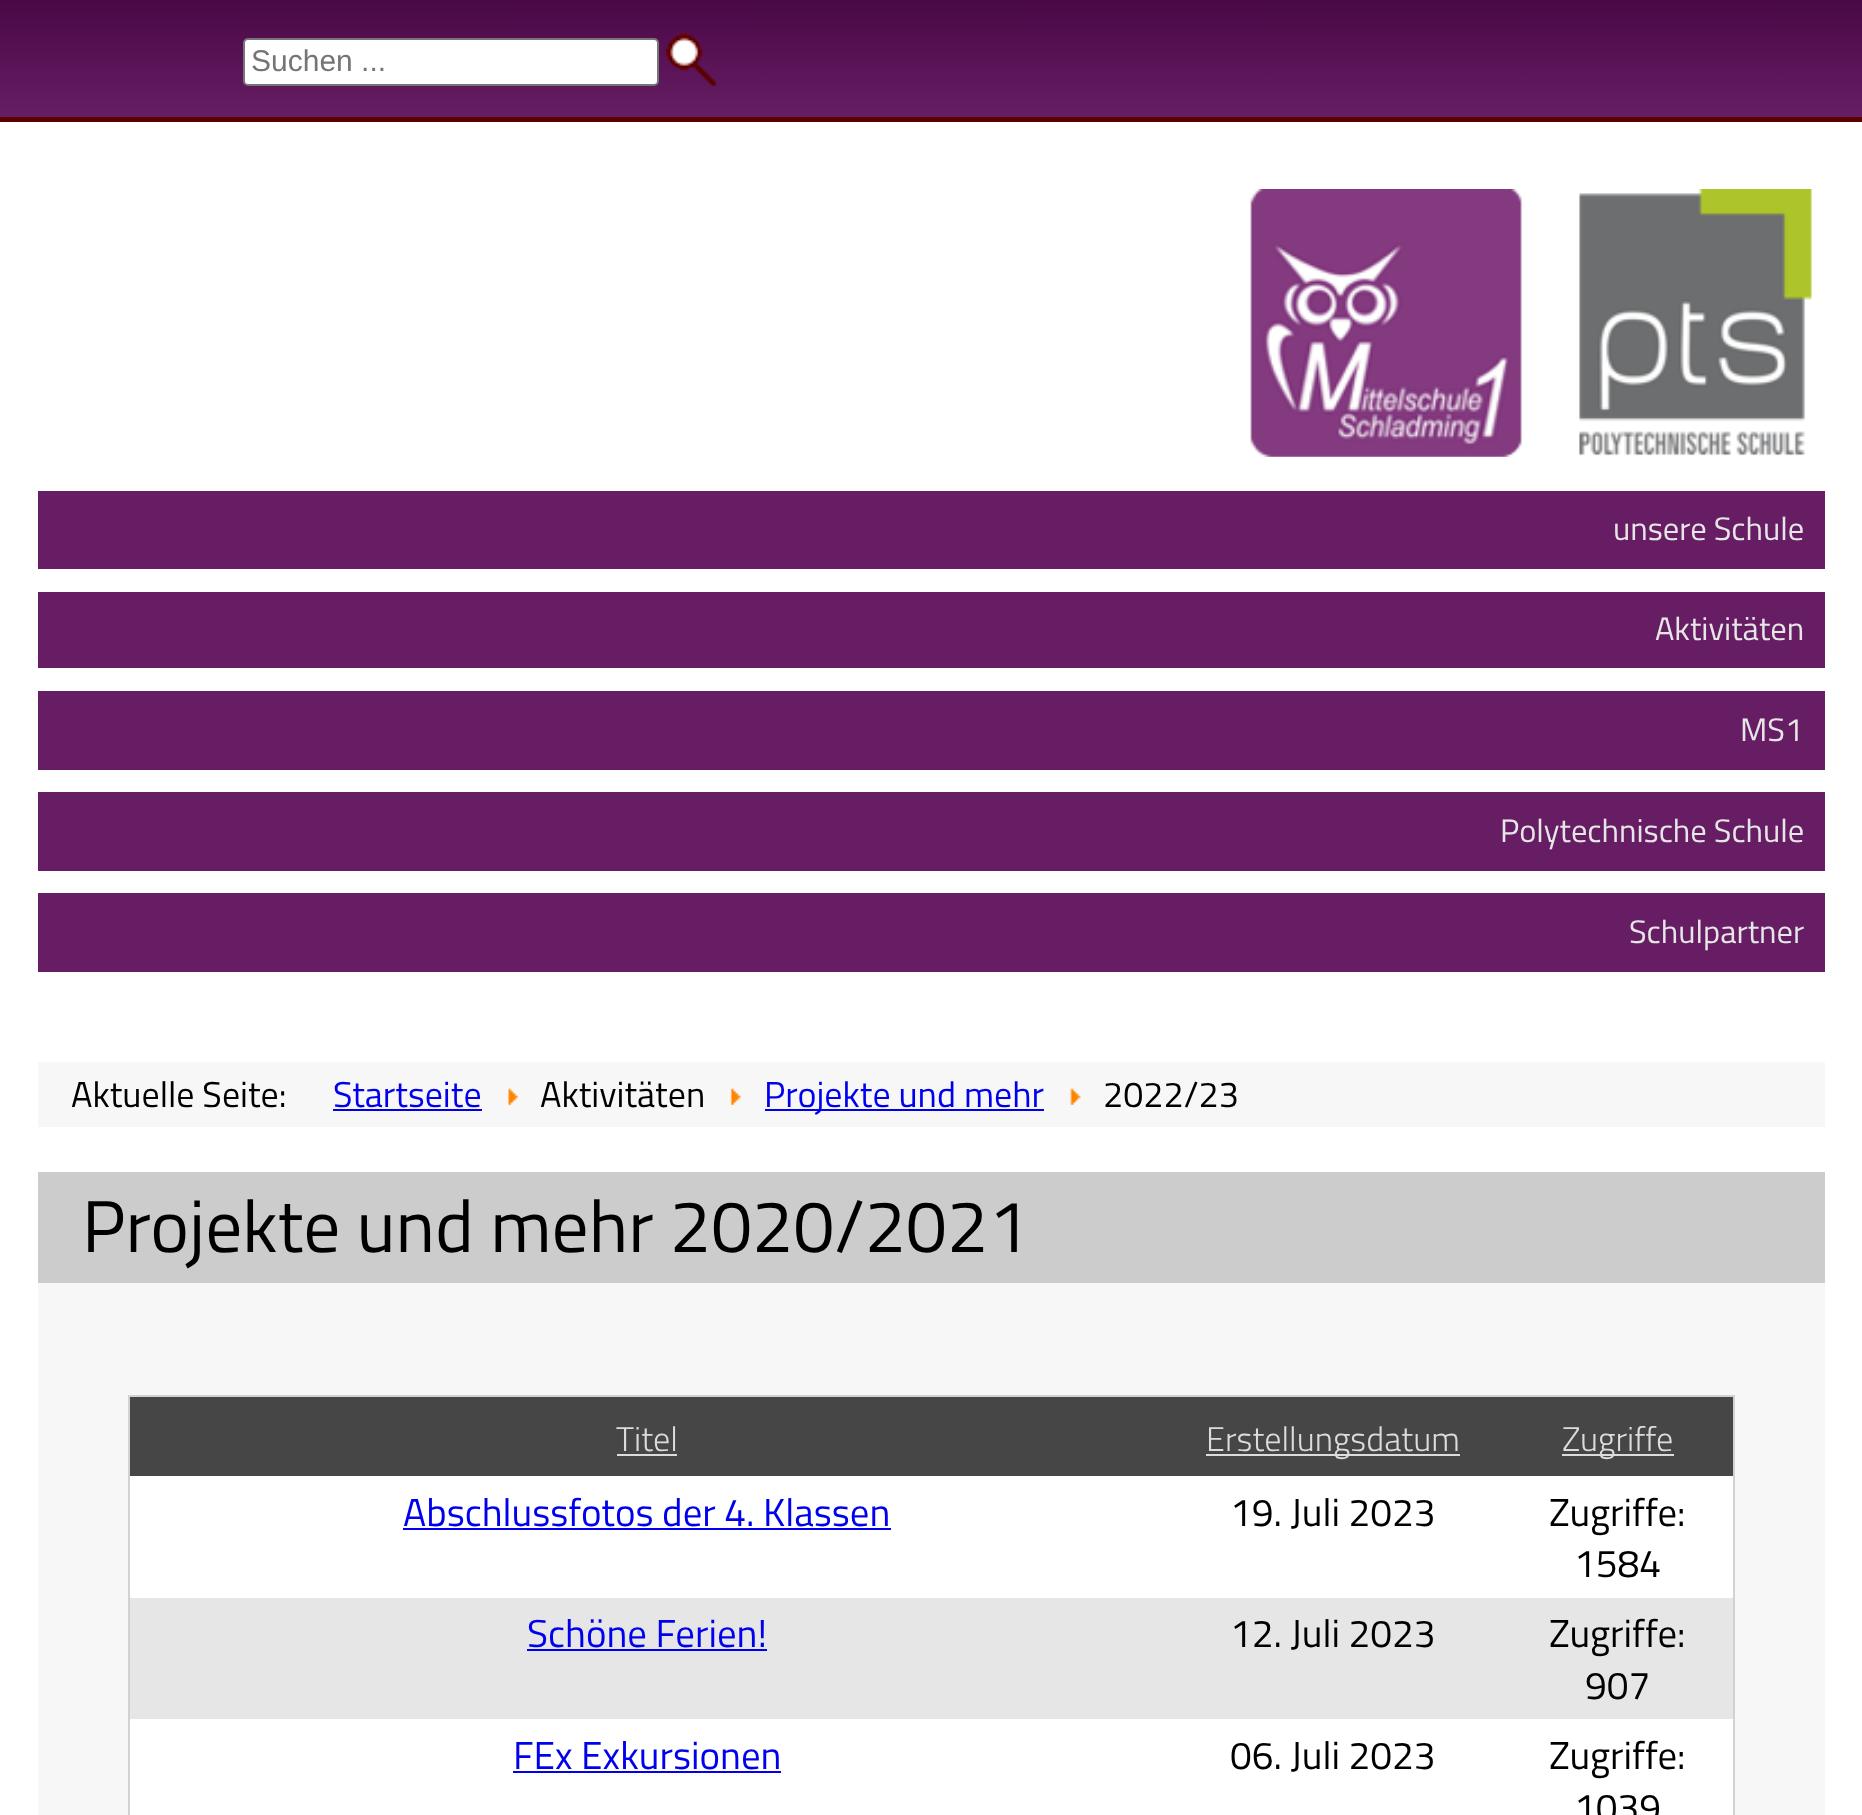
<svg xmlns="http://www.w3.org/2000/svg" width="1862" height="1815">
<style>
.a{font:30px Liberation Sans;fill:#757575}
.b{font:32.5px Titillium Web;fill:#e6e6e6}
.c{font:36px Titillium Web;fill:#000}
.d{font:36px Titillium Web;fill:#00e}
.e{font:73.5px Titillium Web;fill:#000}
.f{font:300 34.25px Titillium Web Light;fill:#dcdcdc}
.g{font:38.9px Titillium Web;fill:#00e}
.h{font:38.9px Titillium Web;fill:#000}
</style>
<defs>
<linearGradient id="g1" gradientUnits="userSpaceOnUse" x1="932" y1="0" x2="932" y2="117"><stop offset="0" stop-color="#490846"/><stop offset="1" stop-color="#671d64"/></linearGradient>
</defs>
<rect width="100%" height="100%" fill="#fff"/>
<path fill="url(#g1)" d="M0 0h1862v117H0z"/>
<path fill="#5a0101" d="M0 117h1862v5H0z"/>
<rect fill="#fff" stroke="#767676" stroke-width="2" x="244" y="39" width="414" height="46" rx="4"/>
<image href="1.png" x="666" y="33" width="51" height="54"/>
<image href="2.png" x="1250" y="189" width="562" height="268"/>
<path fill="#671d64" d="M38 491h1787v78H38z"/>
<path fill="#671d64" d="M38 592h1787v76H38z"/>
<path fill="#671d64" d="M38 691h1787v79H38z"/>
<path fill="#671d64" d="M38 792h1787v79H38z"/>
<path fill="#671d64" d="M38 893h1787v79H38z"/>
<path fill="#f7f7f8" d="M38 1062h1787v65H38z"/>
<path fill="#00e" d="M333 1109h149v2H333z"/>
<image href="3.png" x="508" y="1088" width="11" height="17"/>
<image href="4.png" x="730" y="1088" width="11" height="17"/>
<path fill="#00e" d="M765 1109h279v2H765z"/>
<image href="5.png" x="1070" y="1088" width="11" height="17"/>
<path fill="#f7f7f8" d="M38 1283h1787v532H38z"/>
<path fill="#ccc" d="M38 1172h1787v111H38z"/>
<path fill="#e6e6e6" d="M130 1598h1603v121H130z"/>
<path fill="#d2d2d2" d="M128 1395h1607v2H128z"/>
<path fill="#d2d2d2" d="M1733 1395h2v420H1733z"/>
<path fill="#d2d2d2" d="M128 1395h2v420H128z"/>
<path fill="#464646" d="M130 1397h1603v79H130z"/>
<path fill="#dcdcdc" d="M617 1454h60v2H617z"/>
<path fill="#dcdcdc" d="M1206 1454h254v2H1206z"/>
<path fill="#dcdcdc" d="M1562 1454h112v2H1562z"/>
<path fill="#fff" d="M130 1476h1603v122H130z"/>
<path fill="#00e" d="M403 1528h488v2H403z"/>
<path fill="#00e" d="M527 1649h240v2H527z"/>
<path fill="#fff" d="M130 1719h1603v96H130z"/>
<path fill="#00e" d="M513 1771h268v2H513z"/>
<text class="a" x="251" y="71">Suchen ...</text>
<text class="b" x="1613" y="540">unsere Schule</text>
<text class="b" x="1655" y="640">Aktivitäten</text>
<text class="b" x="1740" y="741">MS1</text>
<text class="b" x="1500" y="842">Polytechnische Schule</text>
<text class="b" x="1629" y="943">Schulpartner</text>
<text class="c" x="71" y="1107">Aktuelle Seite:</text>
<text class="d" x="333" y="1107">Startseite</text>
<text class="c" x="540" y="1107">Aktivitäten</text>
<text class="d" x="764" y="1107">Projekte und mehr</text>
<text class="c" x="1103" y="1107">2022/23</text>
<text class="e" x="82" y="1252">Projekte und mehr 2020/2021</text>
<text class="f" x="616" y="1451">Titel</text>
<text class="f" x="1206" y="1451">Erstellungsdatum</text>
<text class="f" x="1562" y="1451">Zugriffe</text>
<text class="g" x="403" y="1526">Abschlussfotos der 4. Klassen</text>
<text class="h" x="1230" y="1526">19. Juli 2023</text>
<text class="h" x="1549" y="1526">Zugriffe:</text>
<text class="h" x="1574" y="1577">1584</text>
<text class="g" x="527" y="1647">Schöne Ferien!</text>
<text class="h" x="1230" y="1647">12. Juli 2023</text>
<text class="h" x="1549" y="1647">Zugriffe:</text>
<text class="h" x="1585" y="1699">907</text>
<text class="g" x="513" y="1769">FEx Exkursionen</text>
<text class="h" x="1230" y="1769">06. Juli 2023</text>
<text class="h" x="1549" y="1769">Zugriffe:</text>
<text class="h" x="1574" y="1821">1039</text>
</svg>
